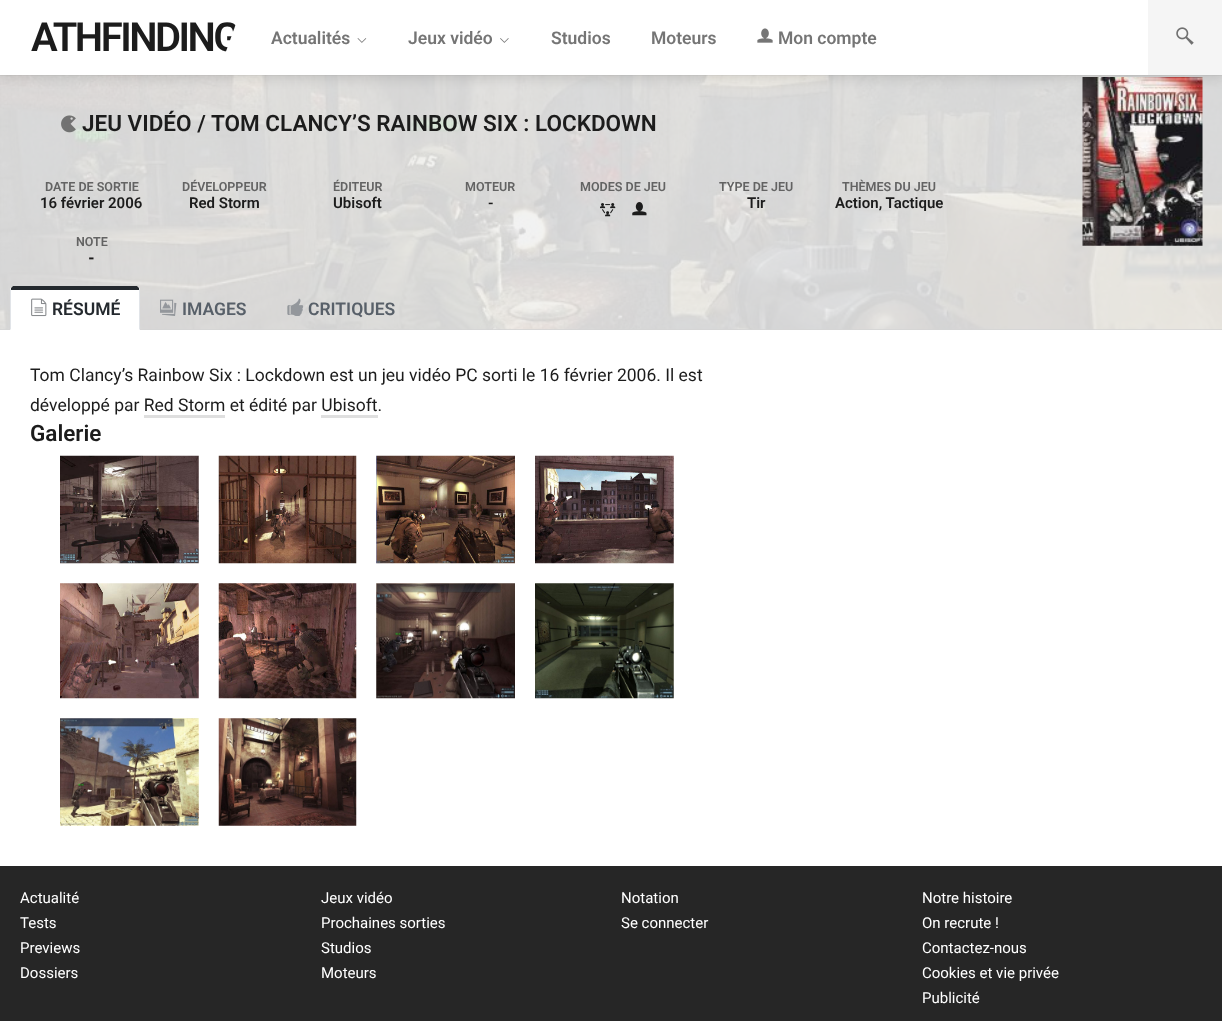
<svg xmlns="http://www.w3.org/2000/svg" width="1222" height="1021">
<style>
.a{font:600 40px Roboto;letter-spacing:-2.5px;fill:#1c1c1c}
.b{font:600 17.5px Roboto;fill:#757575}
.c{font:600 22.5px Roboto;fill:#1c1c1c}
.d{font:600 12.5px Roboto;fill:#636363}
.e{font:600 15px Roboto;fill:#1c1c1c}
.f{font:900 15px Roboto;fill:#1c1c1c}
.g{font:600 17.5px Roboto;fill:#24292e}
.h{font:600 17.5px Roboto;fill:#586069}
.i{font:17.5px Roboto;fill:#1c1c1c}
.j{font:15px Roboto;fill:#fff}
</style>
<defs>
<clipPath id="clip1"><path d="M33.5 0h211l-27 75h-211z"/></clipPath>
</defs>
<rect width="100%" height="100%" fill="#fff"/>
<path fill="#f2f2f2" d="M0 329h1222v1H0z"/>
<image href="5.png" x="0" y="75" width="1222" height="255"/>
<path fill="none" stroke="#0000000a" d="M-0.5 -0.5h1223v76H-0.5z"/>
<image href="9.png" x="1082" y="77" width="121" height="169"/>
<path fill="#0000001a" filter="blur(5.5px)" d="M0 4h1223v75H0z"/>
<path fill="#fff" d="M0 0h1148v75H0z"/>
<image href="1.png" x="357" y="38" width="10" height="5"/>
<image href="2.png" x="500" y="38" width="9" height="5"/>
<image href="3.png" x="757" y="28" width="16" height="15"/>
<path fill="#f5f5f5" d="M1148 0h74v75H1148z"/>
<image href="4.png" x="1176" y="27" width="18" height="18"/>
<path fill="#c8c8c88a" d="M0 329h1222v1H0z"/>
<image href="6.png" x="61" y="115" width="15" height="18"/>
<image href="7.png" x="600" y="203" width="16" height="14"/>
<image href="8.png" x="632" y="202" width="15" height="14"/>
<path fill="#fff" d="M14 286h122c2 0 4 2 4 4v40h-130v-40c0-2 2-4 4-4z"/>
<path fill="#24292e" d="M11 288l2-2h124l2 2v2h-128z"/>
<path fill="#e1e4e8" d="M140 330v-40l-1-2v2v39z"/>
<path fill="#e1e4e8" d="M10 330l1-1v-39v-2l-1 2z"/>
<image href="10.png" x="31" y="298" width="16" height="19"/>
<image href="11.png" x="160" y="299" width="17" height="17"/>
<image href="12.png" x="287" y="298" width="17" height="18"/>
<path fill="#dfdfdf" d="M144 415h81v3H144z"/>
<path fill="#dfdfdf" d="M321 415h57v3H321z"/>
<image href="13.png" x="60" y="455" width="139" height="109"/>
<image href="14.png" x="218" y="455" width="139" height="109"/>
<image href="15.png" x="376" y="455" width="139" height="109"/>
<image href="16.png" x="535" y="455" width="139" height="109"/>
<image href="17.png" x="60" y="583" width="139" height="116"/>
<image href="18.png" x="218" y="583" width="139" height="116"/>
<image href="19.png" x="376" y="583" width="139" height="116"/>
<image href="20.png" x="535" y="583" width="139" height="116"/>
<image href="21.png" x="60" y="718" width="139" height="108"/>
<image href="22.png" x="218" y="718" width="139" height="108"/>
<path fill="#262626" d="M0 866h1222v155H0z"/>
<g clip-path="url(#clip1)">
<text class="a" x="31" y="51">ATHFINDING</text>
</g>
<text class="b" x="271" y="44">Actualités</text>
<text class="b" x="408" y="44">Jeux vidéo</text>
<text class="b" x="551" y="44">Studios</text>
<text class="b" x="651" y="44">Moteurs</text>
<text class="b" x="778" y="44">Mon compte</text>
<text class="c" x="82" y="131">JEU VIDÉO /</text>
<text class="c" x="211" y="131">TOM CLANCY’S RAINBOW SIX : LOCKDOWN</text>
<text class="d" x="45" y="191">DATE DE SORTIE</text>
<text class="e" x="40" y="208">16 février 2006</text>
<text class="d" x="182" y="191">DÉVELOPPEUR</text>
<text class="e" x="189" y="208">Red Storm</text>
<text class="d" x="333" y="191">ÉDITEUR</text>
<text class="e" x="333" y="208">Ubisoft</text>
<text class="d" x="465" y="191">MOTEUR</text>
<text class="e" x="488" y="208">-</text>
<text class="d" x="580" y="191">MODES DE JEU</text>
<text class="d" x="719" y="191">TYPE DE JEU</text>
<text class="e" x="747" y="208">Tir</text>
<text class="d" x="842" y="191">THÈMES DU JEU</text>
<text class="e" x="835" y="208">Action, Tactique</text>
<text class="d" x="76" y="246">NOTE</text>
<text class="f" x="88" y="263">-</text>
<text class="g" x="52" y="315">RÉSUMÉ</text>
<text class="h" x="182" y="315">IMAGES</text>
<text class="h" x="308" y="315">CRITIQUES</text>
<text class="i" x="30" y="381">Tom Clancy’s Rainbow Six : Lockdown est un jeu vidéo PC sorti le 16 février 2006. Il est</text>
<text class="i" x="30" y="411">développé par Red Storm et édité par Ubisoft.</text>
<text class="c" x="30" y="441">Galerie</text>
<text class="j" x="20" y="903">Actualité</text>
<text class="j" x="20" y="928">Tests</text>
<text class="j" x="20" y="953">Previews</text>
<text class="j" x="20" y="978">Dossiers</text>
<text class="j" x="321" y="903">Jeux vidéo</text>
<text class="j" x="321" y="928">Prochaines sorties</text>
<text class="j" x="321" y="953">Studios</text>
<text class="j" x="321" y="978">Moteurs</text>
<text class="j" x="621" y="903">Notation</text>
<text class="j" x="621" y="928">Se connecter</text>
<text class="j" x="922" y="903">Notre histoire</text>
<text class="j" x="922" y="928">On recrute !</text>
<text class="j" x="922" y="953">Contactez-nous</text>
<text class="j" x="922" y="978">Cookies et vie privée</text>
<text class="j" x="922" y="1003">Publicité</text>
</svg>
